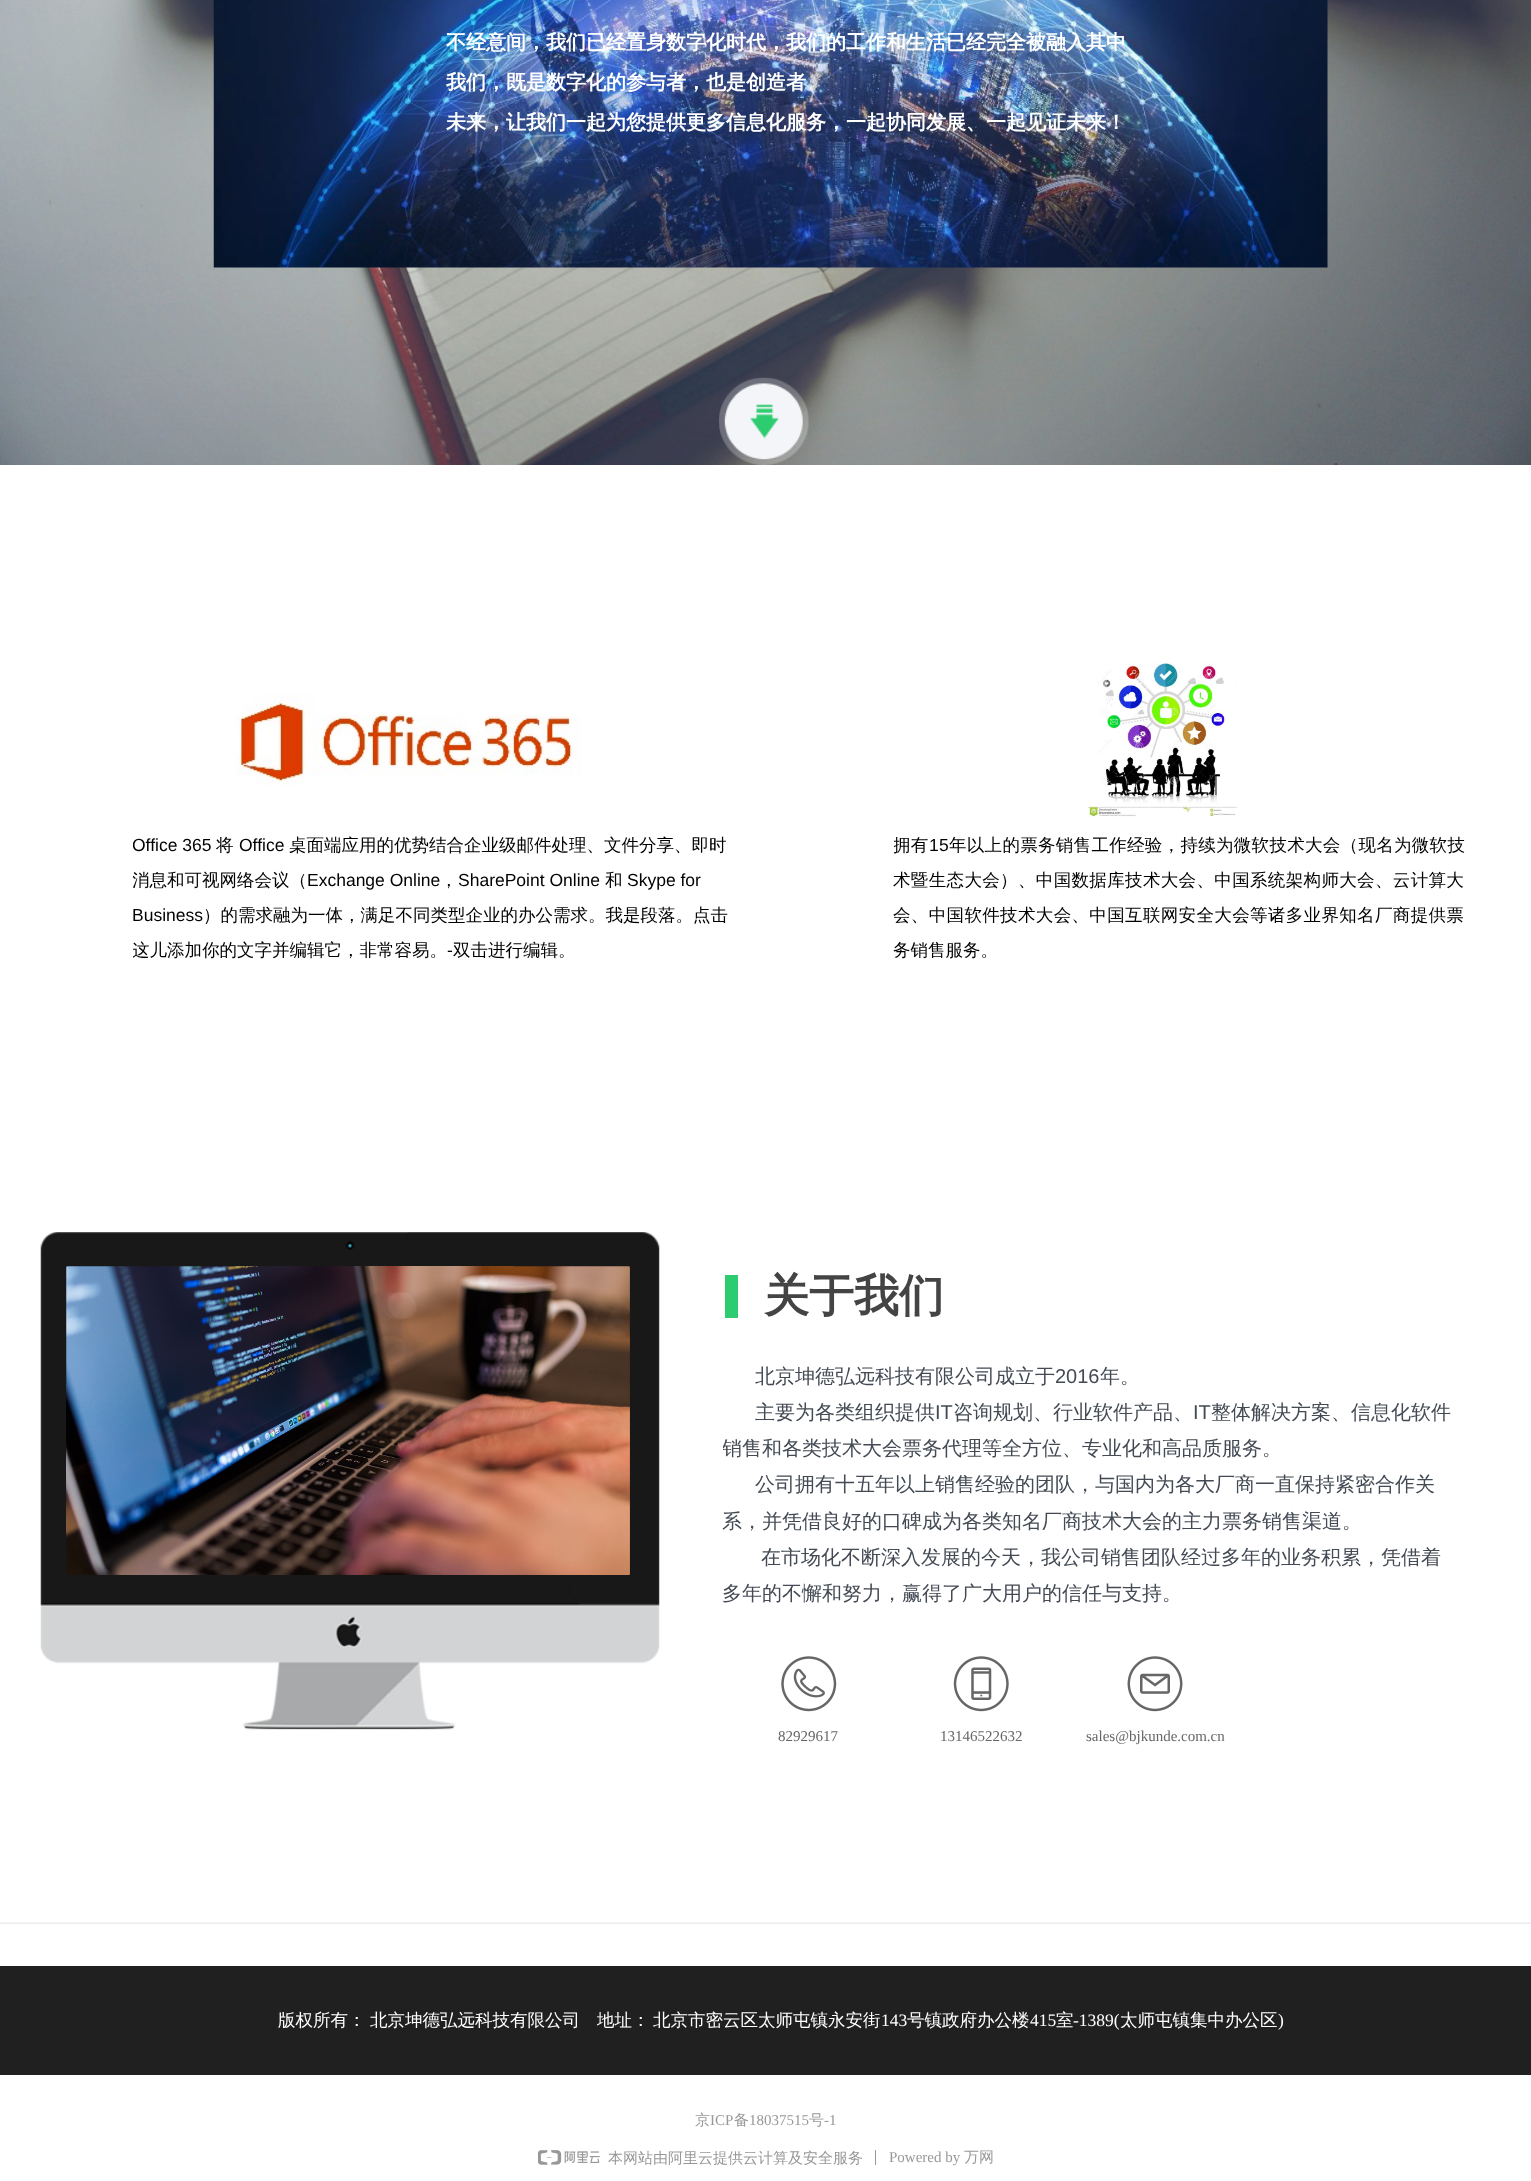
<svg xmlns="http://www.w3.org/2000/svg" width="1531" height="2181">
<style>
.a{font:bold 20px WenQuanYi Zen Hei;fill:#fff}
.b{font:17.5px Liberation Sans;fill:#000}
.c{font:500 17.5px WenQuanYi Zen Hei;fill:#000}
.d{font:500 17.5px WenQuanYi Zen Hei;letter-spacing:0.3px;fill:#000}
.e{font:17.5px Liberation Sans;letter-spacing:0.3px;fill:#000}
.f{font:500 17.5px WenQuanYi Zen Hei;letter-spacing:0.35px;fill:#000}
.g{font:bold 45px WenQuanYi Zen Hei;fill:#444}
.h{font:500 20px WenQuanYi Zen Hei;fill:#434a54}
.i{font:20px Liberation Sans;fill:#434a54}
.j{font:15px Liberation Serif;fill:#666}
.k{font:500 17.5px WenQuanYi Zen Hei;fill:#fff}
.l{font:17.5px Liberation Serif;fill:#fff}
.m{font:500 15px WenQuanYi Zen Hei;fill:#989898}
.n{font:15px Liberation Serif;fill:#989898}
</style>
<defs>
<clipPath id="clip1"><path d="M133 828h605v140H133z"/></clipPath>
<clipPath id="clip2"><path d="M894 828h571v140H894z"/></clipPath>
<clipPath id="clip3"><path d="M723 1358h731v271H723z"/></clipPath>
</defs>
<rect width="100%" height="100%" fill="#fff"/>
<image href="1.png" x="0" y="0" width="1531" height="465"/>
<image href="2.png" x="213" y="0" width="1115" height="268"/>
<image href="3.png" x="719" y="377" width="90" height="88"/>
<image href="4.png" x="236" y="694" width="345" height="91"/>
<image href="5.png" x="1087" y="662" width="151" height="155"/>
<image href="6.png" x="40" y="1232" width="620" height="498"/>
<image href="7.png" x="66" y="1266" width="564" height="309"/>
<path fill="#2ecc71" d="M725 1275h13v43H725z"/>
<image href="8.png" x="781" y="1656" width="56" height="56"/>
<image href="9.png" x="953" y="1656" width="56" height="56"/>
<image href="10.png" x="1127" y="1656" width="56" height="56"/>
<image href="11.png" x="0" y="1922" width="1531" height="2"/>
<path fill="#202020" d="M0 1966h1531v109H0z"/>
<image href="12.png" x="538" y="2150" width="62" height="15"/>
<path fill="#989898" d="M875 2150h1v15H875z"/>
<text class="a" x="446" y="49">不经意间，我们已经置身数字化时代，我们的工作和生活已经完全被融入其中</text>
<text class="a" x="446" y="89">我们，既是数字化的参与者，也是创造者</text>
<text class="a" x="446" y="129">未来，让我们一起为您提供更多信息化服务，一起协同发展、一起见证未来！</text>
<g clip-path="url(#clip1)">
<text class="b" x="132" y="851">Office 365</text>
</g>
<text class="c" x="216" y="851">将</text>
<text class="b" x="239" y="851">Office</text>
<text class="c" x="289" y="851">桌面端应用的优势结合企业级邮件处理、文件分享、即时</text>
<g clip-path="url(#clip1)">
<text class="c" x="132" y="886">消息和可视网络会议（</text>
</g>
<text class="b" x="307" y="886">Exchange Online</text>
<text class="c" x="440" y="886">，</text>
<text class="b" x="458" y="886">SharePoint Online</text>
<text class="c" x="605" y="886">和</text>
<text class="b" x="627" y="886">Skype for</text>
<text class="b" x="132" y="921">Business</text>
<text class="c" x="203" y="921">）的需求融为一体，满足不同类型企业的办公需求。我是段落。点击</text>
<g clip-path="url(#clip1)">
<text class="c" x="132" y="956">这儿添加你的文字并编辑它，非常容易。</text>
</g>
<text class="b" x="447" y="956">-</text>
<text class="c" x="453" y="956">双击进行编辑。</text>
<g clip-path="url(#clip2)">
<text class="d" x="893" y="851">拥有</text>
</g>
<text class="e" x="929" y="851">15</text>
<text class="d" x="949" y="851">年以上的票务销售工作经验，持续为微软技术大会（现名为微软技</text>
<text class="f" x="893" y="886">术暨生态大会）、中国数据库技术大会、中国系统架构师大会、云计算大</text>
<text class="f" x="893" y="921">会、中国软件技术大会、中国互联网安全大会等诸多业界知名厂商提供票</text>
<text class="c" x="893" y="956">务销售服务。</text>
<text class="g" x="764" y="1311">关于我们</text>
<text class="h" x="755" y="1383">北京坤德弘远科技有限公司成立于</text>
<text class="i" x="1055" y="1383">2016</text>
<text class="h" x="1100" y="1383">年。</text>
<text class="h" x="755" y="1419">主要为各类组织提供</text>
<text class="i" x="935" y="1419">IT</text>
<text class="h" x="953" y="1419">咨询规划、行业软件产品、</text>
<text class="i" x="1193" y="1419">IT</text>
<text class="h" x="1211" y="1419">整体解决方案、信息化软件</text>
<g clip-path="url(#clip3)">
<text class="h" x="722" y="1455">销售和各类技术大会票务代理等全方位、专业化和高品质服务。</text>
</g>
<text class="h" x="755" y="1491">公司拥有十五年以上销售经验的团队，与国内为各大厂商一直保持紧密合作关</text>
<text class="h" x="722" y="1528">系，并凭借良好的口碑成为各类知名厂商技术大会的主力票务销售渠道。</text>
<text class="h" x="761" y="1564">在市场化不断深入发展的今天，我公司销售团队经过多年的业务积累，凭借着</text>
<text class="h" x="722" y="1600">多年的不懈和努力，赢得了广大用户的信任与支持。</text>
<text class="j" x="778" y="1741">82929617</text>
<text class="j" x="940" y="1741">13146522632</text>
<text class="j" x="1086" y="1741">sales@bjkunde.com.cn</text>
<text class="k" x="278" y="2026">版权所有：</text>
<text class="k" x="370" y="2026">北京坤德弘远科技有限公司</text>
<text class="k" x="597" y="2026">地址：</text>
<text class="k" x="653" y="2026">北京市密云区太师屯镇永安街</text>
<text class="l" x="881" y="2026">143</text>
<text class="k" x="907" y="2026">号镇政府办公楼</text>
<text class="l" x="1030" y="2026">415</text>
<text class="k" x="1056" y="2026">室</text>
<text class="l" x="1073" y="2026">-1389(</text>
<text class="k" x="1120" y="2026">太师屯镇集中办公区</text>
<text class="l" x="1278" y="2026">)</text>
<text class="m" x="695" y="2125">京</text>
<text class="n" x="710" y="2125">ICP</text>
<text class="m" x="734" y="2125">备</text>
<text class="n" x="749" y="2125">18037515</text>
<text class="m" x="809" y="2125">号</text>
<text class="n" x="824" y="2125">-1</text>
<text class="m" x="608" y="2163">本网站由阿里云提供云计算及安全服务</text>
<text class="n" x="889" y="2162">Powered by</text>
<text class="m" x="964" y="2162">万网</text>
</svg>
